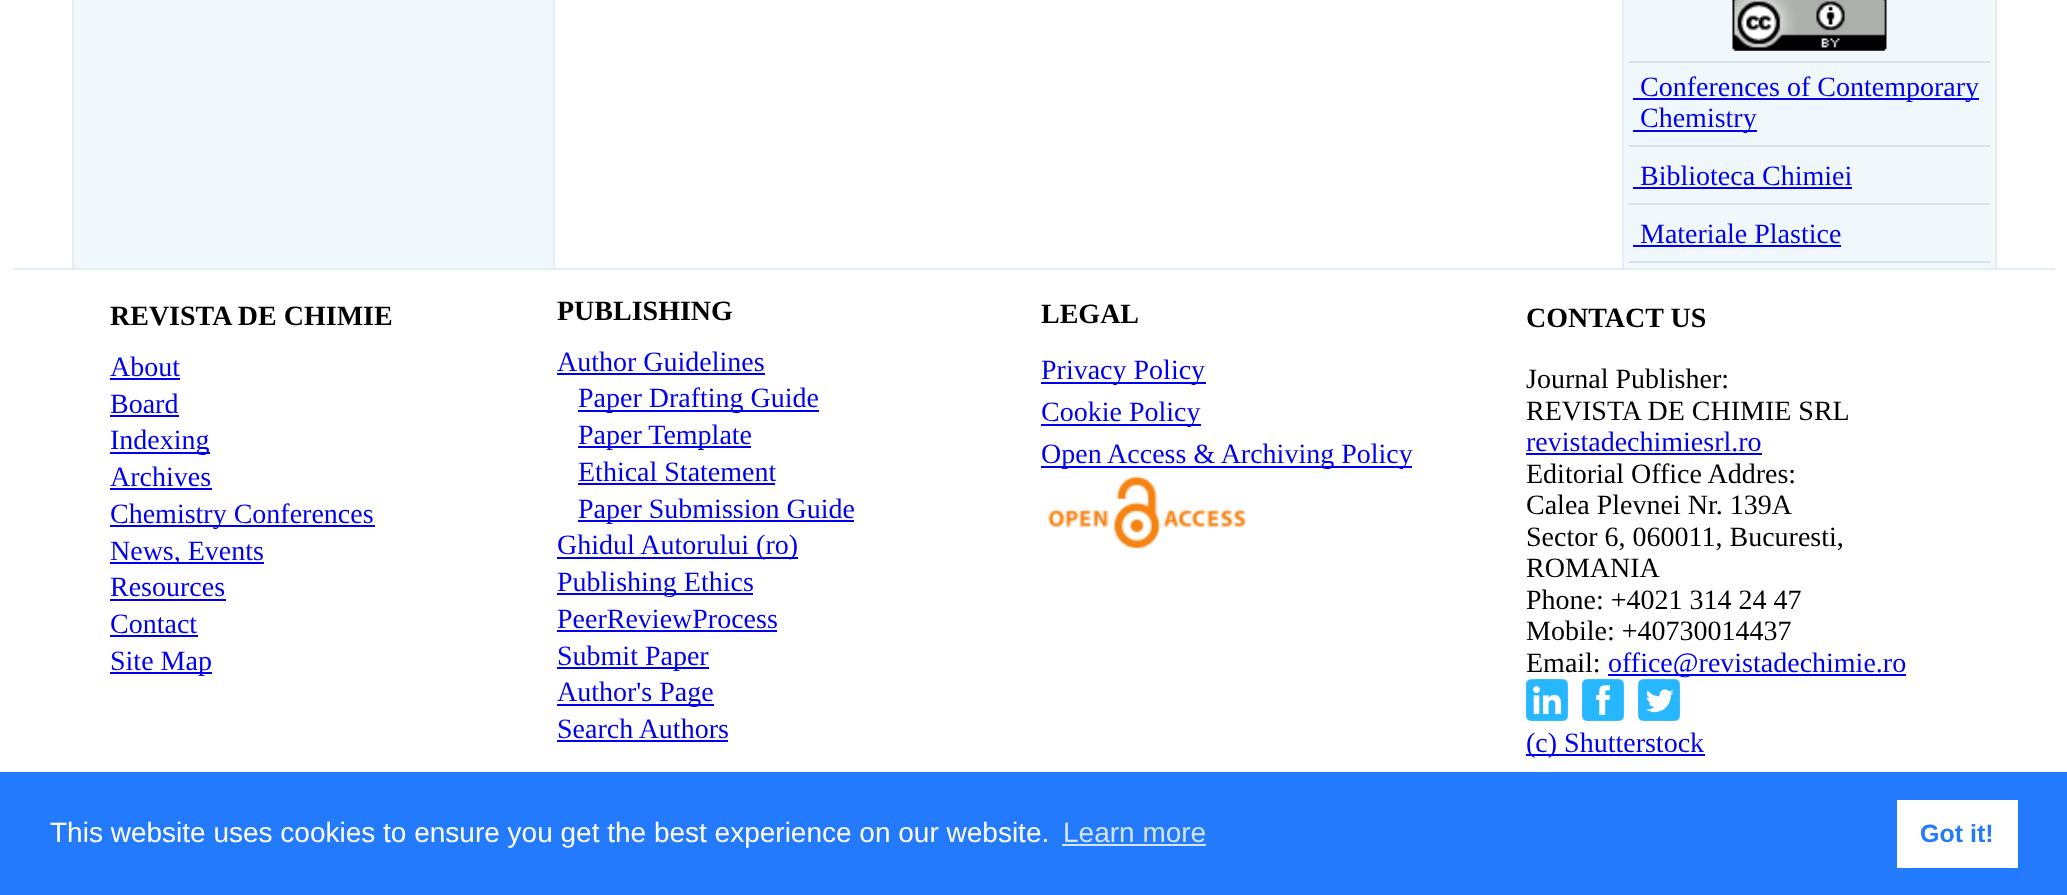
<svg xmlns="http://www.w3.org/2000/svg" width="2067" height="895">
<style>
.a{font:28px Liberation Serif;fill:#00e}
.b{font:bold 28px Liberation Serif;fill:#000}
.c{font:28px Liberation Serif;fill:#000}
.d{font:28px Liberation Sans;fill:#fff}
.e{font:28px Liberation Sans;fill:#d3e4fe}
.f{font:bold 25px Liberation Sans;fill:#237afc}
</style>
<rect width="100%" height="100%" fill="#fff"/>
<path fill="#f0f8fc" d="M74 0h479v268H74z"/>
<path fill="#e6edf7" d="M553 0h2v268H553z"/>
<path fill="#e6edf7" d="M72 0h2v268H72z"/>
<path fill="#f0f8fc" d="M1624 0h371v268H1624z"/>
<path fill="#e6edf7" d="M1995 0h2v268H1995z"/>
<path fill="#e6edf7" d="M1622 0h2v268H1622z"/>
<image href="1.png" x="1732" y="0" width="155" height="51"/>
<path fill="#dae2e6" d="M1629 61h361v2H1629z"/>
<path fill="#dae2e6" d="M1629 145h361v2H1629z"/>
<path fill="#00e" d="M1633 98h346v2H1633z"/>
<path fill="#00e" d="M1633 130h124v2H1633z"/>
<path fill="#dae2e6" d="M1629 203h361v2H1629z"/>
<path fill="#00e" d="M1633 187h219v2H1633z"/>
<path fill="#dae2e6" d="M1629 261h361v2H1629z"/>
<path fill="#00e" d="M1633 245h208v2H1633z"/>
<path fill="#e6edf7" d="M14 268h2041v2H14z"/>
<path fill="#00e" d="M110 378h70v2H110z"/>
<path fill="#00e" d="M110 415h69v2H110z"/>
<path fill="#00e" d="M110 452h100v2H110z"/>
<path fill="#00e" d="M110 488h102v2H110z"/>
<path fill="#00e" d="M110 525h265v2H110z"/>
<path fill="#00e" d="M110 562h154v2H110z"/>
<path fill="#00e" d="M110 599h116v2H110z"/>
<path fill="#00e" d="M110 635h88v2H110z"/>
<path fill="#00e" d="M110 672h102v2H110z"/>
<path fill="#00e" d="M557 373h208v2H557z"/>
<path fill="#00e" d="M578 410h241v2H578z"/>
<path fill="#00e" d="M578 446h173v2H578z"/>
<path fill="#00e" d="M578 483h197v2H578z"/>
<path fill="#00e" d="M578 520h276v2H578z"/>
<path fill="#00e" d="M557 557h241v2H557z"/>
<path fill="#00e" d="M557 593h196v2H557z"/>
<path fill="#00e" d="M557 630h220v2H557z"/>
<path fill="#00e" d="M557 667h152v2H557z"/>
<path fill="#00e" d="M557 704h157v2H557z"/>
<path fill="#00e" d="M557 740h171v2H557z"/>
<path fill="#00e" d="M1041 382h165v2H1041z"/>
<path fill="#00e" d="M1041 424h160v2H1041z"/>
<path fill="#00e" d="M1041 466h371v2H1041z"/>
<image href="2.png" x="1047" y="475" width="200" height="75"/>
<path fill="#00e" d="M1526 453h236v2H1526z"/>
<path fill="#00e" d="M1608 674h298v2H1608z"/>
<image href="3.png" x="1526" y="679" width="42" height="42"/>
<image href="4.png" x="1582" y="679" width="42" height="42"/>
<image href="5.png" x="1638" y="679" width="42" height="42"/>
<path fill="#00e" d="M1526 754h179v2H1526z"/>
<path fill="#237afc" d="M0 772h2067v123H0z"/>
<path fill="#d3e4fe" d="M1062 844h144v2H1062z"/>
<path fill="#fff" d="M1897 800h121v68H1897z"/>
<text class="a" x="1640" y="96">Conferences of Contemporary</text>
<text class="a" x="1640" y="127">Chemistry</text>
<text class="a" x="1640" y="185">Biblioteca Chimiei</text>
<text class="a" x="1640" y="243">Materiale Plastice</text>
<text class="b" x="110" y="325">REVISTA DE CHIMIE</text>
<text class="a" x="110" y="376">About</text>
<text class="a" x="110" y="413">Board</text>
<text class="a" x="110" y="449">Indexing</text>
<text class="a" x="110" y="486">Archives</text>
<text class="a" x="110" y="523">Chemistry Conferences</text>
<text class="a" x="110" y="560">News, Events</text>
<text class="a" x="110" y="596">Resources</text>
<text class="a" x="110" y="633">Contact</text>
<text class="a" x="110" y="670">Site Map</text>
<text class="b" x="557" y="320">PUBLISHING</text>
<text class="a" x="557" y="371">Author Guidelines</text>
<text class="a" x="578" y="407">Paper Drafting Guide</text>
<text class="a" x="578" y="444">Paper Template</text>
<text class="a" x="578" y="481">Ethical Statement</text>
<text class="a" x="578" y="518">Paper Submission Guide</text>
<text class="a" x="557" y="554">Ghidul Autorului (ro)</text>
<text class="a" x="557" y="591">Publishing Ethics</text>
<text class="a" x="557" y="628">PeerReviewProcess</text>
<text class="a" x="557" y="665">Submit Paper</text>
<text class="a" x="557" y="701">Author's Page</text>
<text class="a" x="557" y="738">Search Authors</text>
<text class="b" x="1041" y="323">LEGAL</text>
<text class="a" x="1041" y="379">Privacy Policy</text>
<text class="a" x="1041" y="421">Cookie Policy</text>
<text class="a" x="1041" y="463">Open Access &amp; Archiving Policy</text>
<text class="b" x="1526" y="327">CONTACT US</text>
<text class="c" x="1526" y="388">Journal Publisher:</text>
<text class="c" x="1526" y="420">REVISTA DE CHIMIE SRL</text>
<text class="a" x="1526" y="451">revistadechimiesrl.ro</text>
<text class="c" x="1526" y="483">Editorial Office Addres:</text>
<text class="c" x="1526" y="514">Calea Plevnei Nr. 139A</text>
<text class="c" x="1526" y="546">Sector 6, 060011, Bucuresti,</text>
<text class="c" x="1526" y="577">ROMANIA</text>
<text class="c" x="1526" y="609">Phone: +4021 314 24 47</text>
<text class="c" x="1526" y="640">Mobile: +40730014437</text>
<text class="c" x="1526" y="672">Email:</text>
<text class="a" x="1608" y="672">office@revistadechimie.ro</text>
<text class="a" x="1526" y="752">(c) Shutterstock</text>
<text class="d" x="50" y="842">This website uses cookies to ensure you get the best experience on our website.</text>
<text class="e" x="1063" y="842">Learn more</text>
<text class="f" x="1920" y="842">Got it!</text>
</svg>
